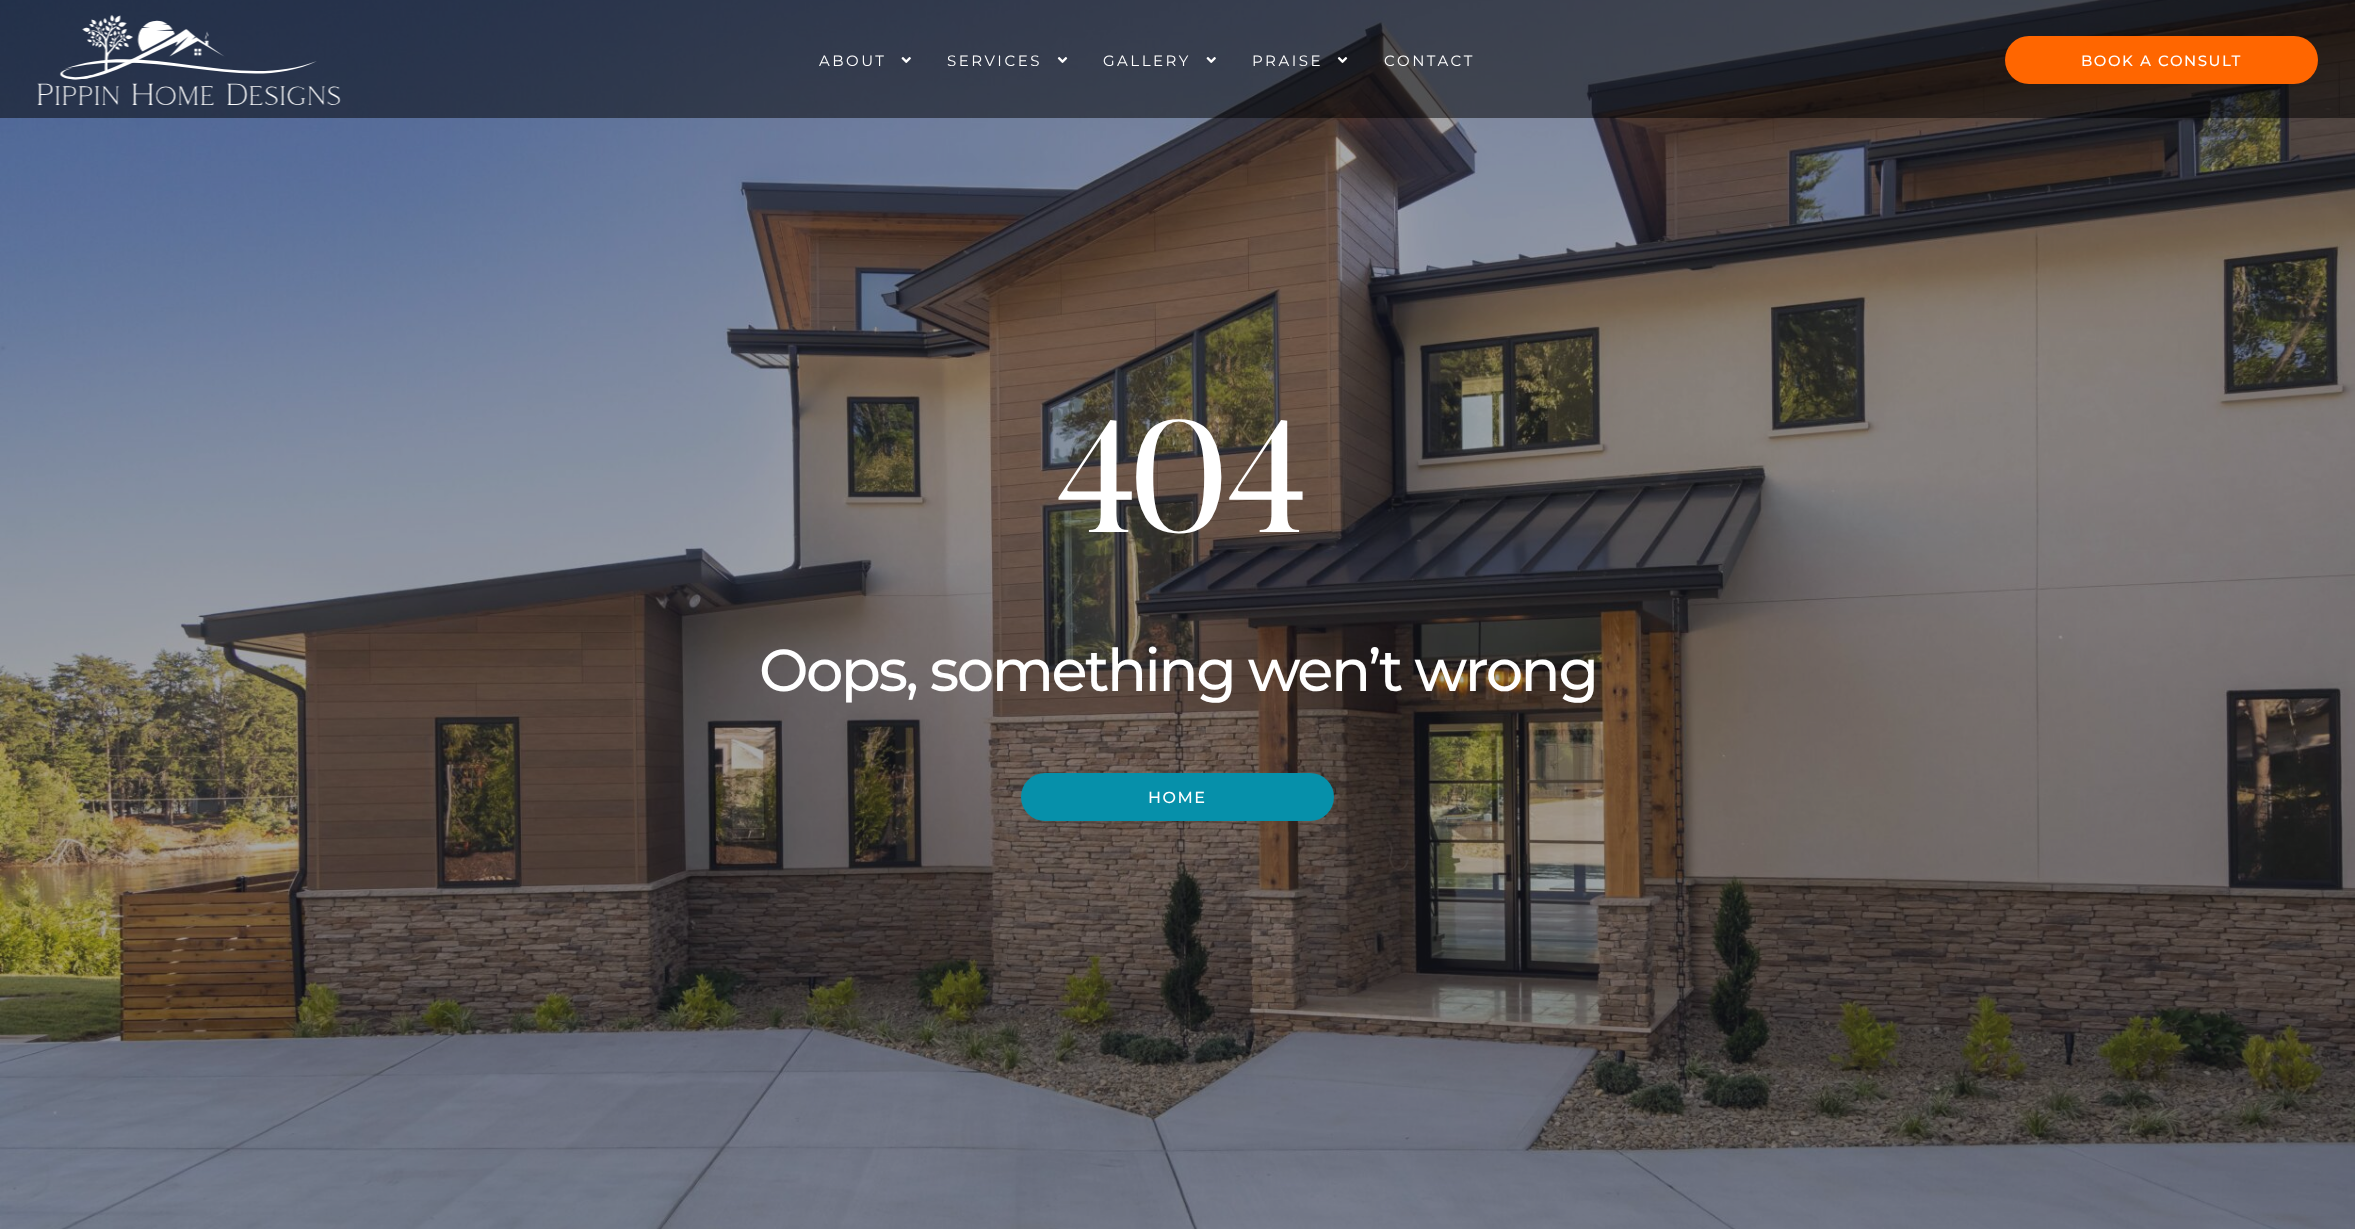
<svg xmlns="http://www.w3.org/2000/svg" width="2355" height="1229">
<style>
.a{font:15px Montserrat;letter-spacing:2.5px;fill:#fff}
.b{font:500 15px Montserrat;letter-spacing:1.5px;fill:#fff}
.c{font:500 158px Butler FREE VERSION;letter-spacing:-2.5px;fill:#fff}
.d{font:500 58.9px Montserrat;letter-spacing:-2.5px;fill:#fff}
.e{font:500 16px Montserrat;letter-spacing:1.5px;fill:#fff}
</style>
<rect width="100%" height="100%" fill="#fff"/>
<image href="6.png" x="0" y="0" width="2355" height="1229"/>
<path fill="#00000080" d="M0 0h2355v118H0z"/>
<image href="1.png" x="37" y="15" width="304" height="90"/>
<image href="2.png" x="901" y="57" width="10" height="6"/>
<image href="3.png" x="1057" y="57" width="11" height="6"/>
<image href="4.png" x="1206" y="57" width="10" height="6"/>
<image href="5.png" x="1337" y="57" width="11" height="6"/>
<rect fill="#f60" x="2005" y="36" width="313" height="48" rx="24"/>
<rect fill="#0690aa" x="1021" y="773" width="313" height="48" rx="24"/>
<text class="a" x="819" y="66">ABOUT</text>
<text class="a" x="947" y="66">SERVICES</text>
<text class="a" x="1103" y="66">GALLERY</text>
<text class="a" x="1252" y="66">PRAISE</text>
<text class="a" x="1384" y="66">CONTACT</text>
<text class="b" x="2081" y="66">BOOK A CONSULT</text>
<text class="c" x="1054" y="532">404</text>
<text class="d" x="759" y="691">Oops, something wen’t wrong</text>
<text class="e" x="1148" y="803">HOME</text>
</svg>
